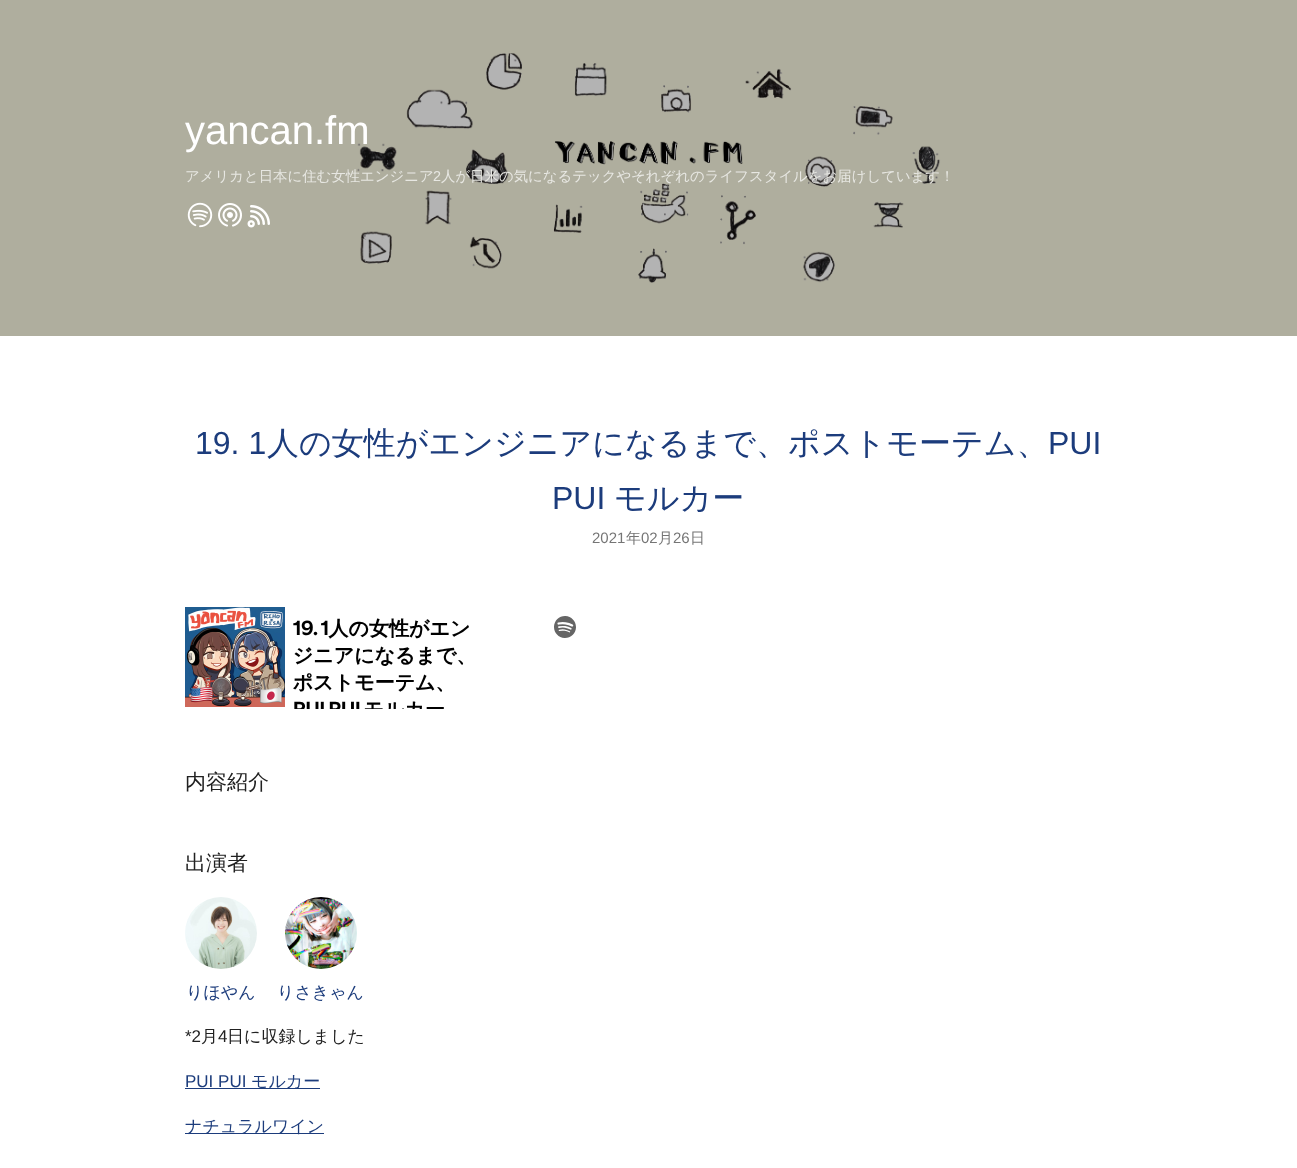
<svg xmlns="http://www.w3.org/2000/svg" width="1297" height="1168">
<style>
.a{font:40px Liberation Sans;fill:#fff}
.b{font:500 14.4px WenQuanYi Zen Hei;fill:#e7e7e2}
.c{font:14.4px Liberation Sans;fill:#e7e7e2}
.d{font:32px Liberation Sans;fill:#1c3c7c}
.e{font:500 32px WenQuanYi Zen Hei;fill:#1c3c7c}
.f{font:15px Liberation Sans;fill:#757575}
.g{font:500 15px WenQuanYi Zen Hei;fill:#757575}
.h{font:500 21px WenQuanYi Zen Hei;fill:#212121}
.i{font:500 17px WenQuanYi Zen Hei;fill:#1c3c7c}
.j{font:17px Liberation Sans;fill:#212121}
.k{font:500 17px WenQuanYi Zen Hei;fill:#212121}
.l{font:17px Liberation Sans;fill:#1c3c7c}
</style>
<rect width="100%" height="100%" fill="#fff"/>
<image href="1.png" x="0" y="0" width="1297" height="336"/>
<image href="2.png" x="187" y="202" width="26" height="26"/>
<image href="3.png" x="218" y="203" width="24" height="24"/>
<image href="4.png" x="247" y="205" width="23" height="23"/>
<image href="5.png" x="185" y="607" width="391" height="102"/>
<image href="6.png" x="185" y="897" width="72" height="72"/>
<image href="7.png" x="285" y="897" width="72" height="72"/>
<path fill="#1c3c7c" d="M185 1088h135v1H185z"/>
<path fill="#1c3c7c" d="M185 1133h139v1H185z"/>
<text class="a" x="185" y="144">yancan.fm</text>
<text class="b" x="185" y="181">アメリカと日本に住む女性エンジニア</text>
<text class="c" x="433" y="181">2</text>
<text class="b" x="441" y="181">人が日米の気になるテックやそれぞれのライフスタイルをお届けしています！</text>
<text class="d" x="195" y="454">19. 1</text>
<text class="e" x="267" y="454">人の女性がエンジニアになるまで、ポストモーテム、</text>
<text class="d" x="1048" y="454">PUI</text>
<text class="d" x="552" y="509">PUI</text>
<text class="e" x="614" y="509">モルカー</text>
<text class="f" x="592" y="543">2021</text>
<text class="g" x="626" y="543">年</text>
<text class="f" x="641" y="543">02</text>
<text class="g" x="658" y="543">月</text>
<text class="f" x="673" y="543">26</text>
<text class="g" x="690" y="543">日</text>
<text class="h" x="185" y="789">内容紹介</text>
<text class="h" x="185" y="870">出演者</text>
<text class="i" x="186" y="998">りほやん</text>
<text class="i" x="277" y="998">りさきゃん</text>
<text class="j" x="185" y="1042">*2</text>
<text class="k" x="201" y="1042">月</text>
<text class="j" x="218" y="1042">4</text>
<text class="k" x="227" y="1042">日に収録しました</text>
<text class="l" x="185" y="1087">PUI PUI</text>
<text class="i" x="251" y="1087">モルカー</text>
<text class="i" x="185" y="1132">ナチュラルワイン</text>
</svg>
